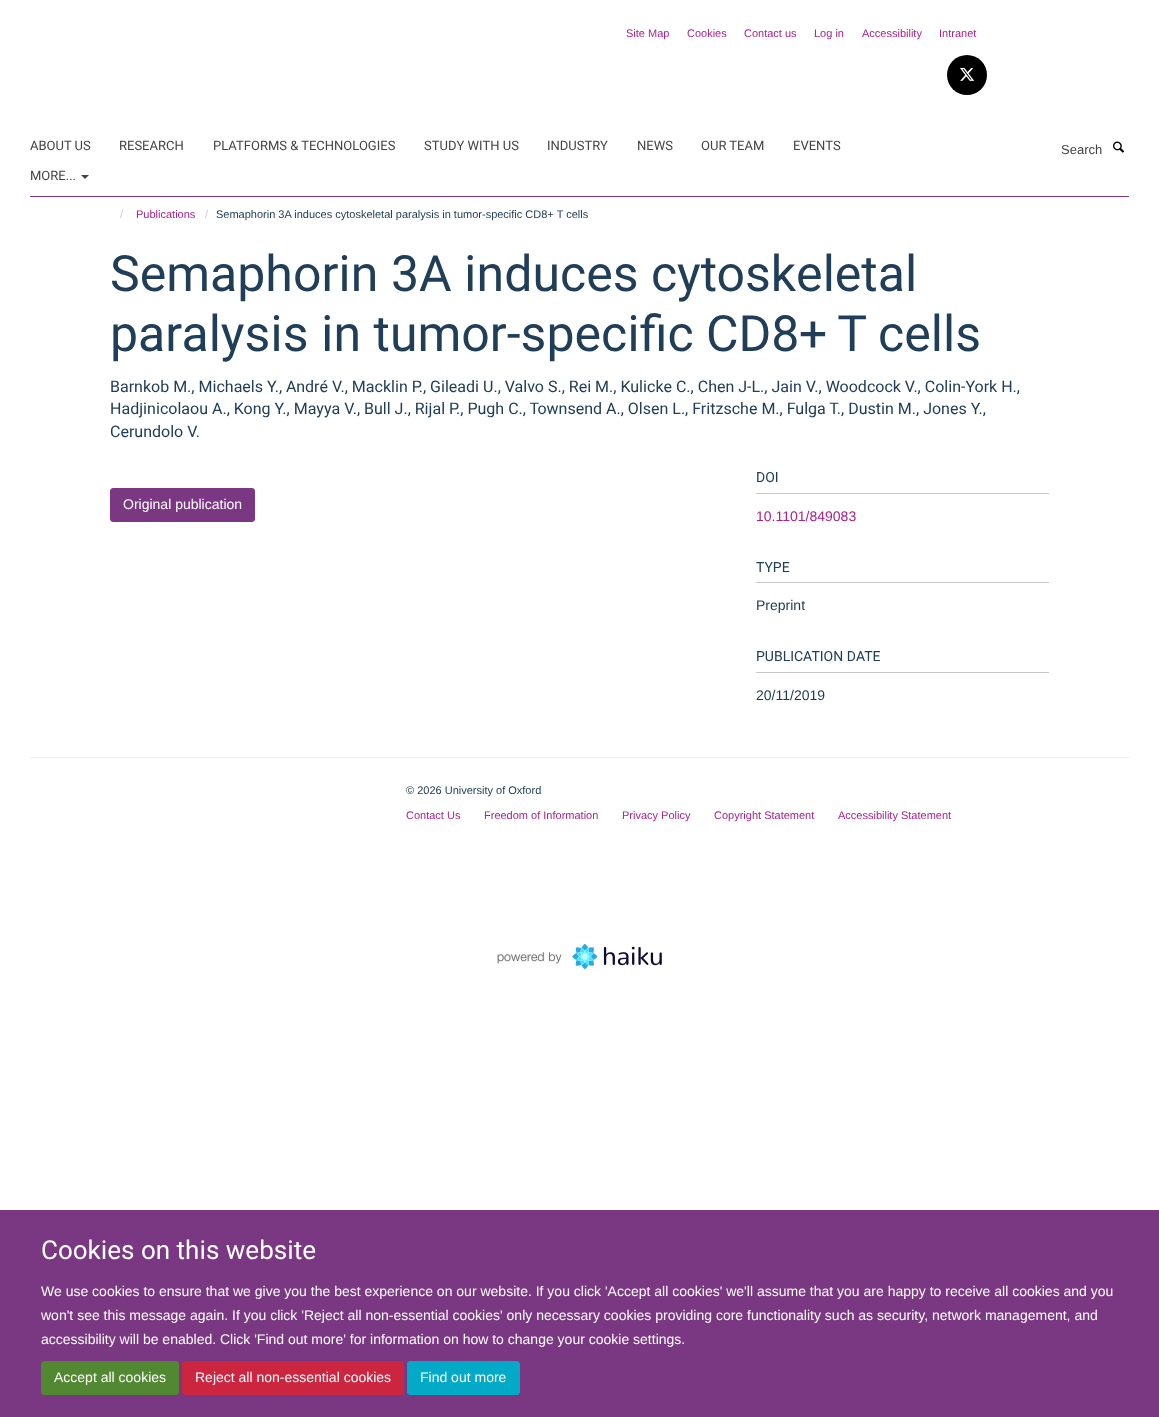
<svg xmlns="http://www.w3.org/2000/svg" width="1159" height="1417">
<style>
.a{font:11px Liberation Sans;fill:#a8228b}
.b{font:13px Heebo;fill:#444}
.c{font:13px Liberation Sans;fill:#444}
.d{font:11px Liberation Sans;fill:#ccc}
.e{font:11px Liberation Sans;fill:#1d3850}
.f{font:50px Heebo;fill:#203e58}
.g{font:16px Heebo;fill:#203e58}
.h{font:14px Liberation Sans;fill:#fff}
.i{font:14px Heebo;fill:#203e58}
.j{font:14px Liberation Sans;fill:#a8228b}
.k{font:14px Liberation Sans;fill:#1d3850}
.l{font:26px Heebo;fill:#fff}
</style>
<rect width="100%" height="100%" fill="#fff"/>
<circle fill="#000" cx="967" cy="75" r="20"/>
<image href="1.png" x="960" y="67" width="15" height="14"/>
<path fill="#7a3782" d="M30 196h1099v1H30z"/>
<path fill="#444" d="M81 175h8l-4 4z"/>
<image href="2.png" x="1113" y="141" width="11" height="12"/>
<rect fill="#7a3782" stroke="#7a3782" x="110.5" y="488.5" width="144" height="33" rx="2.5"/>
<path fill="#c6cacf" d="M756 493h293v1H756z"/>
<path fill="#c6cacf" d="M756 582h293v1H756z"/>
<path fill="#c6cacf" d="M756 672h293v1H756z"/>
<path fill="#eee" d="M30 757h1099v1H30z"/>
<image href="3.png" x="497" y="943" width="165" height="27"/>
<path fill="#7a3782" d="M0 1210h1159v207H0z"/>
<rect fill="#518831" stroke="#518831" x="41.5" y="1361.5" width="137" height="33" rx="2.5"/>
<rect fill="#cc253f" stroke="#cc253f" x="182.5" y="1361.5" width="221" height="33" rx="2.5"/>
<rect fill="#02aac7" stroke="#02aac7" x="407.5" y="1361.5" width="112" height="33" rx="2.5"/>
<text class="a" x="626" y="37">Site Map</text>
<text class="a" x="687" y="37">Cookies</text>
<text class="a" x="744" y="37">Contact us</text>
<text class="a" x="814" y="37">Log in</text>
<text class="a" x="862" y="37">Accessibility</text>
<text class="a" x="939" y="37">Intranet</text>
<text class="b" x="30" y="150">ABOUT US</text>
<text class="b" x="119" y="150">RESEARCH</text>
<text class="b" x="213" y="150">PLATFORMS &amp; TECHNOLOGIES</text>
<text class="b" x="424" y="150">STUDY WITH US</text>
<text class="b" x="547" y="150">INDUSTRY</text>
<text class="b" x="637" y="150">NEWS</text>
<text class="b" x="701" y="150">OUR TEAM</text>
<text class="b" x="793" y="150">EVENTS</text>
<text class="b" x="30" y="180">MORE...</text>
<text class="c" x="1061" y="154">Search</text>
<text class="d" x="120" y="218">/</text>
<text class="a" x="136" y="218">Publications</text>
<text class="d" x="205" y="218">/</text>
<text class="e" x="216" y="218">Semaphorin 3A induces cytoskeletal paralysis in tumor-specific CD8+ T cells</text>
<text class="f" x="110" y="291">Semaphorin 3A induces cytoskeletal</text>
<text class="f" x="110" y="351">paralysis in tumor-specific CD8+ T cells</text>
<text class="g" x="110" y="392">Barnkob M., Michaels Y., André V., Macklin P., Gileadi U., Valvo S., Rei M., Kulicke C., Chen J-L., Jain V., Woodcock V., Colin-York H.,</text>
<text class="g" x="110" y="414">Hadjinicolaou A., Kong Y., Mayya V., Bull J., Rijal P., Pugh C., Townsend A., Olsen L., Fritzsche M., Fulga T., Dustin M., Jones Y.,</text>
<text class="g" x="110" y="437">Cerundolo V.</text>
<text class="h" x="123" y="509">Original publication</text>
<text class="i" x="756" y="482">DOI</text>
<text class="j" x="756" y="521">10.1101/849083</text>
<text class="i" x="756" y="572">TYPE</text>
<text class="k" x="756" y="610">Preprint</text>
<text class="i" x="756" y="661">PUBLICATION DATE</text>
<text class="k" x="756" y="700">20/11/2019</text>
<text class="e" x="406" y="794">© 2026 University of Oxford</text>
<text class="a" x="406" y="819">Contact Us</text>
<text class="a" x="484" y="819">Freedom of Information</text>
<text class="a" x="622" y="819">Privacy Policy</text>
<text class="a" x="714" y="819">Copyright Statement</text>
<text class="a" x="838" y="819">Accessibility Statement</text>
<text class="l" x="41" y="1259">Cookies on this website</text>
<text class="h" x="41" y="1296">We use cookies to ensure that we give you the best experience on our website. If you click 'Accept all cookies' we'll assume that you are happy to receive all cookies and you</text>
<text class="h" x="41" y="1320">won't see this message again. If you click 'Reject all non-essential cookies' only necessary cookies providing core functionality such as security, network management, and</text>
<text class="h" x="41" y="1344">accessibility will be enabled. Click 'Find out more' for information on how to change your cookie settings.</text>
<text class="h" x="54" y="1382">Accept all cookies</text>
<text class="h" x="195" y="1382">Reject all non-essential cookies</text>
<text class="h" x="420" y="1382">Find out more</text>
</svg>
